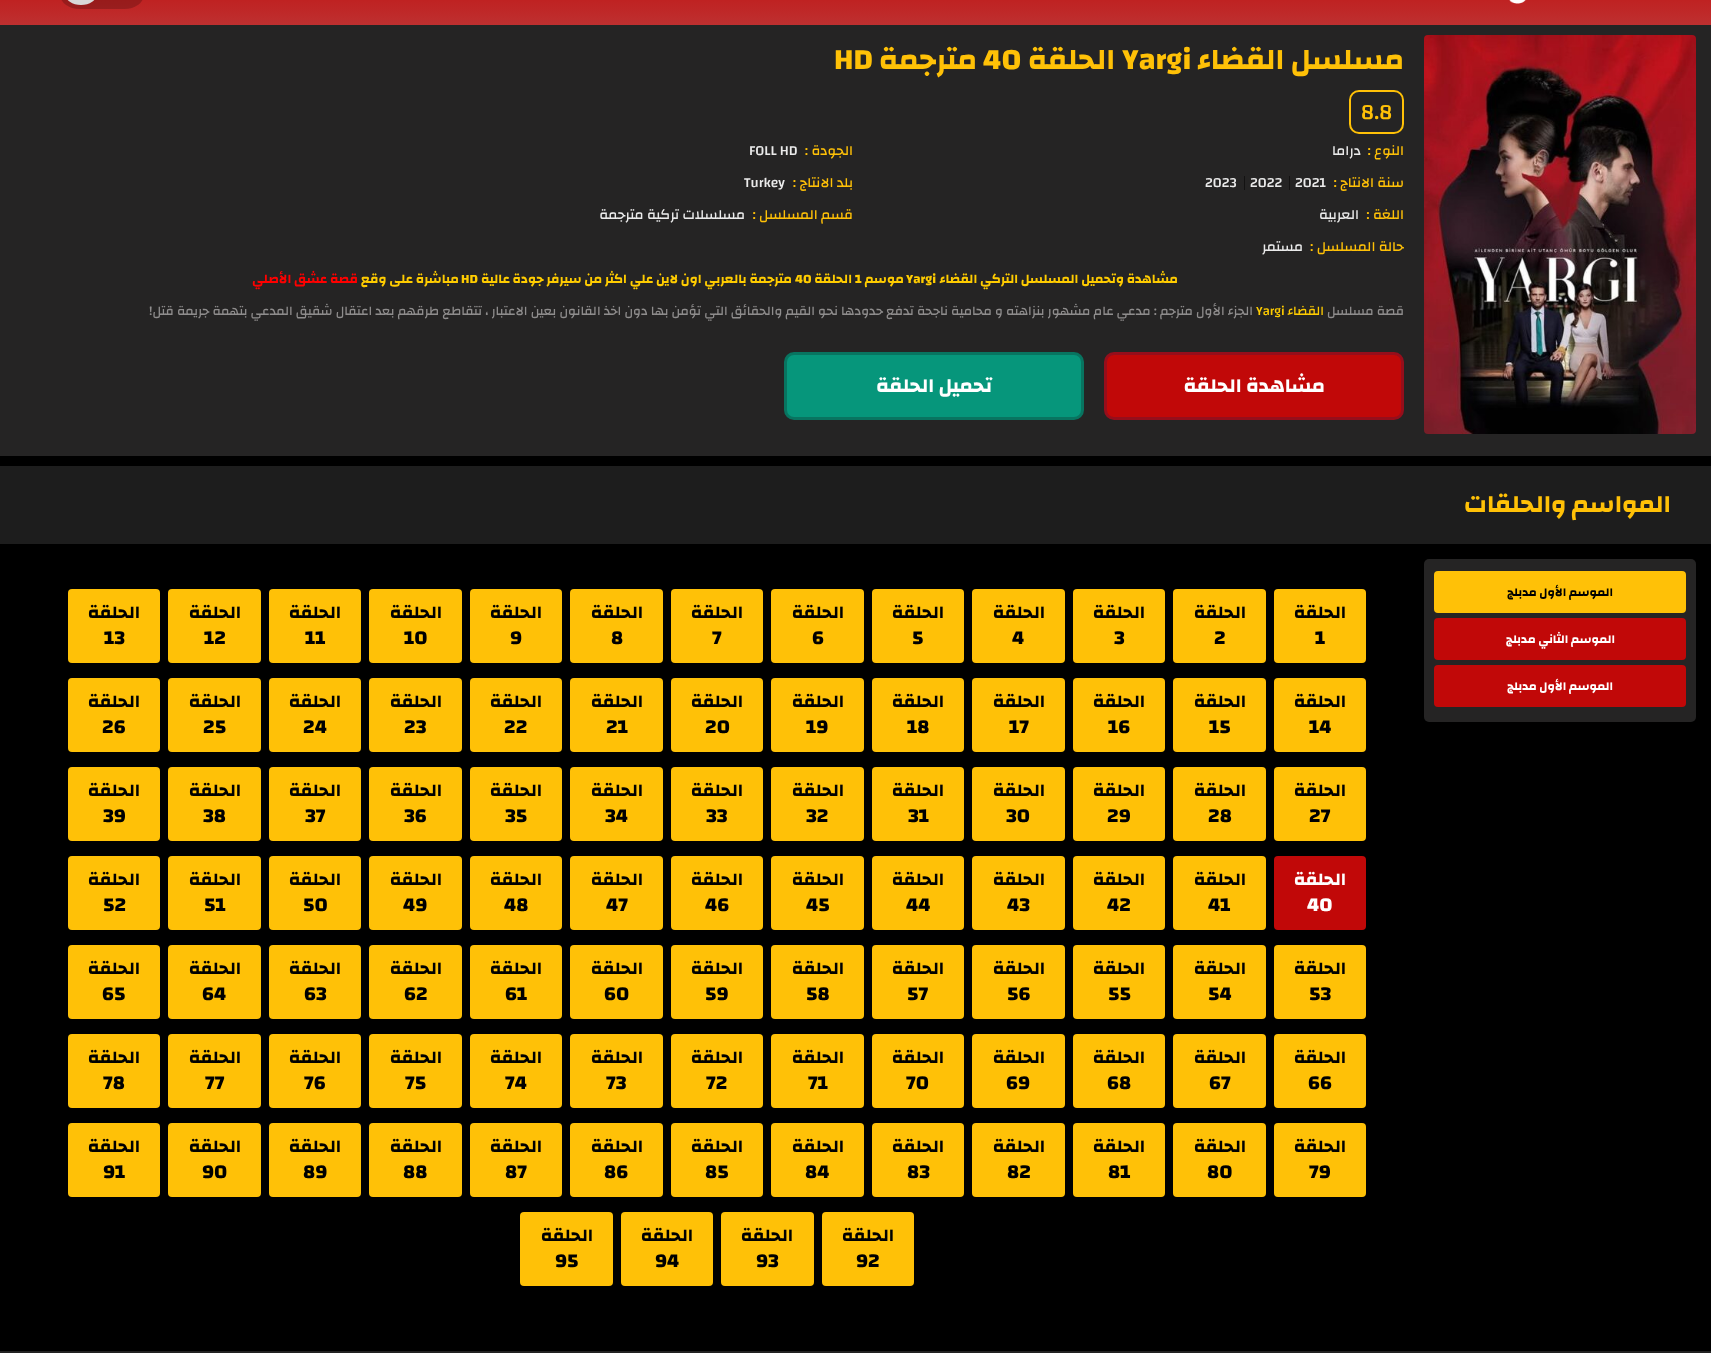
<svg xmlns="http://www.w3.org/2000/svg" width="1711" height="1353">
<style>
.a{font:bold 30px Changa;direction:rtl;fill:#ffc107}
.b{font:bold 30px Changa;fill:#ffc107}
.c{font:500 22px Changa;fill:#ffc107}
.d{font:500 14px Changa;direction:rtl;fill:#ffc107}
.e{font:500 14px Changa;direction:rtl;fill:#ebebeb}
.f{font:500 14px Changa;fill:#ebebeb}
.g{font:bold 13px Changa;direction:rtl;fill:#fc0}
.h{font:bold 13px Changa;fill:#fc0}
.i{font:bold 13px Changa;direction:rtl;fill:#f00}
.j{font:500 13px Changa;direction:rtl;fill:#8f8d8d}
.k{font:500 13px Changa;direction:rtl;fill:#fc0}
.l{font:500 13px Changa;fill:#fc0}
.m{font:bold 20px Changa;direction:rtl;fill:#fff}
.n{font:bold 25px Changa;direction:rtl;fill:#ffc107}
.o{font:bold 12px Changa;direction:rtl;fill:#000}
.p{font:bold 12px Changa;direction:rtl;fill:#fff}
.q{font:bold 18px Changa;direction:rtl;fill:#000}
.r{font:bold 20px Changa;fill:#000}
.s{font:bold 18px Changa;direction:rtl;fill:#fff}
.t{font:bold 20px Changa;fill:#fff}
</style>
<defs>
<linearGradient id="g1" gradientUnits="userSpaceOnUse" x1="856" y1="-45" x2="856" y2="25"><stop offset="0" stop-color="#c10808"/><stop offset="1" stop-color="#be3030"/></linearGradient>
</defs>
<rect width="100%" height="100%" fill="#000"/>
<path fill="url(#g1)" d="M0 0h1711v25H0z"/>
<image href="1.png" x="1509" y="0" width="18" height="4"/>
<rect fill="#00000033" x="60" y="-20" width="84" height="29" rx="19.5"/>
<rect fill="#d9d8d8" stroke="#d9d8d8" stroke-width="2" x="66" y="-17" width="30" height="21" rx="15"/>
<path fill="#252424" d="M0 25h1711v431H0z"/>
<image href="2.png" x="1424" y="35" width="272" height="399"/>
<rect fill="none" stroke="#ffc107" stroke-width="2" x="1350" y="91" width="53" height="42" rx="9"/>
<path fill="#131212" d="M1289 176h1v14H1289z"/>
<path fill="#131212" d="M1244 176h1v14H1244z"/>
<rect fill="#c10808" stroke="#960e1b" stroke-width="3" x="1105.5" y="353.5" width="297" height="65" rx="8.5"/>
<rect fill="#06967b" stroke="#087460" stroke-width="3" x="785.5" y="353.5" width="297" height="65" rx="8.5"/>
<path fill="#1d1d1d" d="M0 466h1711v78H0z"/>
<rect fill="#252424" x="1424" y="559" width="272" height="163" rx="5"/>
<rect fill="#ffc107" x="1434" y="571" width="252" height="42" rx="4"/>
<rect fill="#c10808" x="1434" y="618" width="252" height="42" rx="4"/>
<rect fill="#c10808" x="1434" y="665" width="252" height="42" rx="4"/>
<rect fill="#ffc107" x="1274" y="589" width="92" height="74" rx="4"/>
<rect fill="#ffc107" x="1173" y="589" width="93" height="74" rx="4"/>
<rect fill="#ffc107" x="1073" y="589" width="92" height="74" rx="4"/>
<rect fill="#ffc107" x="972" y="589" width="93" height="74" rx="4"/>
<rect fill="#ffc107" x="872" y="589" width="92" height="74" rx="4"/>
<rect fill="#ffc107" x="771" y="589" width="93" height="74" rx="4"/>
<rect fill="#ffc107" x="671" y="589" width="92" height="74" rx="4"/>
<rect fill="#ffc107" x="570" y="589" width="93" height="74" rx="4"/>
<rect fill="#ffc107" x="470" y="589" width="92" height="74" rx="4"/>
<rect fill="#ffc107" x="369" y="589" width="93" height="74" rx="4"/>
<rect fill="#ffc107" x="269" y="589" width="92" height="74" rx="4"/>
<rect fill="#ffc107" x="168" y="589" width="93" height="74" rx="4"/>
<rect fill="#ffc107" x="68" y="589" width="92" height="74" rx="4"/>
<rect fill="#ffc107" x="1274" y="678" width="92" height="74" rx="4"/>
<rect fill="#ffc107" x="1173" y="678" width="93" height="74" rx="4"/>
<rect fill="#ffc107" x="1073" y="678" width="92" height="74" rx="4"/>
<rect fill="#ffc107" x="972" y="678" width="93" height="74" rx="4"/>
<rect fill="#ffc107" x="872" y="678" width="92" height="74" rx="4"/>
<rect fill="#ffc107" x="771" y="678" width="93" height="74" rx="4"/>
<rect fill="#ffc107" x="671" y="678" width="92" height="74" rx="4"/>
<rect fill="#ffc107" x="570" y="678" width="93" height="74" rx="4"/>
<rect fill="#ffc107" x="470" y="678" width="92" height="74" rx="4"/>
<rect fill="#ffc107" x="369" y="678" width="93" height="74" rx="4"/>
<rect fill="#ffc107" x="269" y="678" width="92" height="74" rx="4"/>
<rect fill="#ffc107" x="168" y="678" width="93" height="74" rx="4"/>
<rect fill="#ffc107" x="68" y="678" width="92" height="74" rx="4"/>
<rect fill="#ffc107" x="1274" y="767" width="92" height="74" rx="4"/>
<rect fill="#ffc107" x="1173" y="767" width="93" height="74" rx="4"/>
<rect fill="#ffc107" x="1073" y="767" width="92" height="74" rx="4"/>
<rect fill="#ffc107" x="972" y="767" width="93" height="74" rx="4"/>
<rect fill="#ffc107" x="872" y="767" width="92" height="74" rx="4"/>
<rect fill="#ffc107" x="771" y="767" width="93" height="74" rx="4"/>
<rect fill="#ffc107" x="671" y="767" width="92" height="74" rx="4"/>
<rect fill="#ffc107" x="570" y="767" width="93" height="74" rx="4"/>
<rect fill="#ffc107" x="470" y="767" width="92" height="74" rx="4"/>
<rect fill="#ffc107" x="369" y="767" width="93" height="74" rx="4"/>
<rect fill="#ffc107" x="269" y="767" width="92" height="74" rx="4"/>
<rect fill="#ffc107" x="168" y="767" width="93" height="74" rx="4"/>
<rect fill="#ffc107" x="68" y="767" width="92" height="74" rx="4"/>
<rect fill="#c10808" x="1274" y="856" width="92" height="74" rx="4"/>
<rect fill="#ffc107" x="1173" y="856" width="93" height="74" rx="4"/>
<rect fill="#ffc107" x="1073" y="856" width="92" height="74" rx="4"/>
<rect fill="#ffc107" x="972" y="856" width="93" height="74" rx="4"/>
<rect fill="#ffc107" x="872" y="856" width="92" height="74" rx="4"/>
<rect fill="#ffc107" x="771" y="856" width="93" height="74" rx="4"/>
<rect fill="#ffc107" x="671" y="856" width="92" height="74" rx="4"/>
<rect fill="#ffc107" x="570" y="856" width="93" height="74" rx="4"/>
<rect fill="#ffc107" x="470" y="856" width="92" height="74" rx="4"/>
<rect fill="#ffc107" x="369" y="856" width="93" height="74" rx="4"/>
<rect fill="#ffc107" x="269" y="856" width="92" height="74" rx="4"/>
<rect fill="#ffc107" x="168" y="856" width="93" height="74" rx="4"/>
<rect fill="#ffc107" x="68" y="856" width="92" height="74" rx="4"/>
<rect fill="#ffc107" x="1274" y="945" width="92" height="74" rx="4"/>
<rect fill="#ffc107" x="1173" y="945" width="93" height="74" rx="4"/>
<rect fill="#ffc107" x="1073" y="945" width="92" height="74" rx="4"/>
<rect fill="#ffc107" x="972" y="945" width="93" height="74" rx="4"/>
<rect fill="#ffc107" x="872" y="945" width="92" height="74" rx="4"/>
<rect fill="#ffc107" x="771" y="945" width="93" height="74" rx="4"/>
<rect fill="#ffc107" x="671" y="945" width="92" height="74" rx="4"/>
<rect fill="#ffc107" x="570" y="945" width="93" height="74" rx="4"/>
<rect fill="#ffc107" x="470" y="945" width="92" height="74" rx="4"/>
<rect fill="#ffc107" x="369" y="945" width="93" height="74" rx="4"/>
<rect fill="#ffc107" x="269" y="945" width="92" height="74" rx="4"/>
<rect fill="#ffc107" x="168" y="945" width="93" height="74" rx="4"/>
<rect fill="#ffc107" x="68" y="945" width="92" height="74" rx="4"/>
<rect fill="#ffc107" x="1274" y="1034" width="92" height="74" rx="4"/>
<rect fill="#ffc107" x="1173" y="1034" width="93" height="74" rx="4"/>
<rect fill="#ffc107" x="1073" y="1034" width="92" height="74" rx="4"/>
<rect fill="#ffc107" x="972" y="1034" width="93" height="74" rx="4"/>
<rect fill="#ffc107" x="872" y="1034" width="92" height="74" rx="4"/>
<rect fill="#ffc107" x="771" y="1034" width="93" height="74" rx="4"/>
<rect fill="#ffc107" x="671" y="1034" width="92" height="74" rx="4"/>
<rect fill="#ffc107" x="570" y="1034" width="93" height="74" rx="4"/>
<rect fill="#ffc107" x="470" y="1034" width="92" height="74" rx="4"/>
<rect fill="#ffc107" x="369" y="1034" width="93" height="74" rx="4"/>
<rect fill="#ffc107" x="269" y="1034" width="92" height="74" rx="4"/>
<rect fill="#ffc107" x="168" y="1034" width="93" height="74" rx="4"/>
<rect fill="#ffc107" x="68" y="1034" width="92" height="74" rx="4"/>
<rect fill="#ffc107" x="1274" y="1123" width="92" height="74" rx="4"/>
<rect fill="#ffc107" x="1173" y="1123" width="93" height="74" rx="4"/>
<rect fill="#ffc107" x="1073" y="1123" width="92" height="74" rx="4"/>
<rect fill="#ffc107" x="972" y="1123" width="93" height="74" rx="4"/>
<rect fill="#ffc107" x="872" y="1123" width="92" height="74" rx="4"/>
<rect fill="#ffc107" x="771" y="1123" width="93" height="74" rx="4"/>
<rect fill="#ffc107" x="671" y="1123" width="92" height="74" rx="4"/>
<rect fill="#ffc107" x="570" y="1123" width="93" height="74" rx="4"/>
<rect fill="#ffc107" x="470" y="1123" width="92" height="74" rx="4"/>
<rect fill="#ffc107" x="369" y="1123" width="93" height="74" rx="4"/>
<rect fill="#ffc107" x="269" y="1123" width="92" height="74" rx="4"/>
<rect fill="#ffc107" x="168" y="1123" width="93" height="74" rx="4"/>
<rect fill="#ffc107" x="68" y="1123" width="92" height="74" rx="4"/>
<rect fill="#ffc107" x="822" y="1212" width="92" height="74" rx="4"/>
<rect fill="#ffc107" x="721" y="1212" width="93" height="74" rx="4"/>
<rect fill="#ffc107" x="621" y="1212" width="92" height="74" rx="4"/>
<rect fill="#ffc107" x="520" y="1212" width="93" height="74" rx="4"/>
<path fill="#222" d="M0 1351h1711v2H0z"/>
<text class="a" x="1404" y="69">مسلسل القضاء</text>
<text class="b" x="1122" y="69">Yargi</text>
<text class="a" x="1115" y="69">الحلقة</text>
<text class="b" x="983" y="69">40</text>
<text class="a" x="977" y="69">مترجمة</text>
<text class="b" x="834" y="69">HD</text>
<text class="c" x="1361" y="119">8.8</text>
<text class="d" x="1404" y="155">النوع :</text>
<text class="e" x="1361" y="155">دراما</text>
<text class="d" x="853" y="155">الجودة :</text>
<text class="f" x="749" y="155">FOLL HD</text>
<text class="d" x="1404" y="187">سنة الانتاج :</text>
<text class="f" x="1295" y="187">2021</text>
<text class="f" x="1250" y="187">2022</text>
<text class="f" x="1205" y="187">2023</text>
<text class="d" x="853" y="187">بلد الانتاج :</text>
<text class="f" x="744" y="187">Turkey</text>
<text class="d" x="1404" y="219">اللغة :</text>
<text class="e" x="1359" y="219">العربية</text>
<text class="d" x="853" y="219">قسم المسلسل :</text>
<text class="e" x="745" y="219">مسلسلات تركية مترجمة</text>
<text class="d" x="1404" y="251">حالة المسلسل :</text>
<text class="e" x="1303" y="251">مستمر</text>
<text class="g" x="1178" y="283">مشاهدة وتحميل المسلسل التركي القضاء</text>
<text class="h" x="906" y="283">Yargi</text>
<text class="g" x="904" y="283">موسم</text>
<text class="h" x="855" y="283">1</text>
<text class="g" x="852" y="283">الحلقة</text>
<text class="h" x="795" y="283">40</text>
<text class="g" x="792" y="283">مترجمة بالعربي اون لاين علي اكثر من سيرفر جودة عالية</text>
<text class="h" x="461" y="283">HD</text>
<text class="g" x="459" y="283">مباشرة على وقع</text>
<text class="i" x="358" y="283">قصة عشق الأصلي</text>
<text class="j" x="1404" y="315">قصة مسلسل</text>
<text class="k" x="1324" y="315">القضاء</text>
<text class="l" x="1256" y="315">Yargi</text>
<text class="j" x="1253" y="315">الجزء الأول مترجم : مدعي عام مشهور بنزاهته و محامية ناجحة تدفع حدودها نحو القيم والحقائق التي تؤمن بها دون اخذ القانون بعين الاعتبار ، تتقاطع طرقهم بعد اعتقال شقيق المدعي بتهمة جريمة قتل!</text>
<text class="m" x="1325" y="392">مشاهدة الحلقة</text>
<text class="m" x="992" y="392">تحميل الحلقة</text>
<text class="n" x="1671" y="512">المواسم والحلقات</text>
<text class="o" x="1613" y="596">الموسم الأول مدبلج</text>
<text class="p" x="1615" y="643">الموسم الثاني مدبلج</text>
<text class="p" x="1613" y="690">الموسم الأول مدبلج</text>
<text class="q" x="1346" y="618">الحلقة</text>
<text class="r" x="1315" y="644">1</text>
<text class="q" x="1246" y="618">الحلقة</text>
<text class="r" x="1214" y="644">2</text>
<text class="q" x="1145" y="618">الحلقة</text>
<text class="r" x="1114" y="644">3</text>
<text class="q" x="1045" y="618">الحلقة</text>
<text class="r" x="1012" y="644">4</text>
<text class="q" x="944" y="618">الحلقة</text>
<text class="r" x="912" y="644">5</text>
<text class="q" x="844" y="618">الحلقة</text>
<text class="r" x="812" y="644">6</text>
<text class="q" x="743" y="618">الحلقة</text>
<text class="r" x="712" y="644">7</text>
<text class="q" x="643" y="618">الحلقة</text>
<text class="r" x="611" y="644">8</text>
<text class="q" x="542" y="618">الحلقة</text>
<text class="r" x="510" y="644">9</text>
<text class="q" x="442" y="618">الحلقة</text>
<text class="r" x="404" y="644">10</text>
<text class="q" x="341" y="618">الحلقة</text>
<text class="r" x="305" y="644">11</text>
<text class="q" x="241" y="618">الحلقة</text>
<text class="r" x="204" y="644">12</text>
<text class="q" x="140" y="618">الحلقة</text>
<text class="r" x="104" y="644">13</text>
<text class="q" x="1346" y="707">الحلقة</text>
<text class="r" x="1309" y="733">14</text>
<text class="q" x="1246" y="707">الحلقة</text>
<text class="r" x="1209" y="733">15</text>
<text class="q" x="1145" y="707">الحلقة</text>
<text class="r" x="1108" y="733">16</text>
<text class="q" x="1045" y="707">الحلقة</text>
<text class="r" x="1009" y="733">17</text>
<text class="q" x="944" y="707">الحلقة</text>
<text class="r" x="907" y="733">18</text>
<text class="q" x="844" y="707">الحلقة</text>
<text class="r" x="806" y="733">19</text>
<text class="q" x="743" y="707">الحلقة</text>
<text class="r" x="705" y="733">20</text>
<text class="q" x="643" y="707">الحلقة</text>
<text class="r" x="606" y="733">21</text>
<text class="q" x="542" y="707">الحلقة</text>
<text class="r" x="504" y="733">22</text>
<text class="q" x="442" y="707">الحلقة</text>
<text class="r" x="404" y="733">23</text>
<text class="q" x="341" y="707">الحلقة</text>
<text class="r" x="303" y="733">24</text>
<text class="q" x="241" y="707">الحلقة</text>
<text class="r" x="203" y="733">25</text>
<text class="q" x="140" y="707">الحلقة</text>
<text class="r" x="102" y="733">26</text>
<text class="q" x="1346" y="796">الحلقة</text>
<text class="r" x="1309" y="822">27</text>
<text class="q" x="1246" y="796">الحلقة</text>
<text class="r" x="1208" y="822">28</text>
<text class="q" x="1145" y="796">الحلقة</text>
<text class="r" x="1107" y="822">29</text>
<text class="q" x="1045" y="796">الحلقة</text>
<text class="r" x="1006" y="822">30</text>
<text class="q" x="944" y="796">الحلقة</text>
<text class="r" x="908" y="822">31</text>
<text class="q" x="844" y="796">الحلقة</text>
<text class="r" x="806" y="822">32</text>
<text class="q" x="743" y="796">الحلقة</text>
<text class="r" x="706" y="822">33</text>
<text class="q" x="643" y="796">الحلقة</text>
<text class="r" x="605" y="822">34</text>
<text class="q" x="542" y="796">الحلقة</text>
<text class="r" x="505" y="822">35</text>
<text class="q" x="442" y="796">الحلقة</text>
<text class="r" x="404" y="822">36</text>
<text class="q" x="341" y="796">الحلقة</text>
<text class="r" x="305" y="822">37</text>
<text class="q" x="241" y="796">الحلقة</text>
<text class="r" x="203" y="822">38</text>
<text class="q" x="140" y="796">الحلقة</text>
<text class="r" x="103" y="822">39</text>
<text class="s" x="1346" y="885">الحلقة</text>
<text class="t" x="1307" y="911">40</text>
<text class="q" x="1246" y="885">الحلقة</text>
<text class="r" x="1208" y="911">41</text>
<text class="q" x="1145" y="885">الحلقة</text>
<text class="r" x="1107" y="911">42</text>
<text class="q" x="1045" y="885">الحلقة</text>
<text class="r" x="1007" y="911">43</text>
<text class="q" x="944" y="885">الحلقة</text>
<text class="r" x="906" y="911">44</text>
<text class="q" x="844" y="885">الحلقة</text>
<text class="r" x="806" y="911">45</text>
<text class="q" x="743" y="885">الحلقة</text>
<text class="r" x="705" y="911">46</text>
<text class="q" x="643" y="885">الحلقة</text>
<text class="r" x="606" y="911">47</text>
<text class="q" x="542" y="885">الحلقة</text>
<text class="r" x="504" y="911">48</text>
<text class="q" x="442" y="885">الحلقة</text>
<text class="r" x="403" y="911">49</text>
<text class="q" x="341" y="885">الحلقة</text>
<text class="r" x="303" y="911">50</text>
<text class="q" x="241" y="885">الحلقة</text>
<text class="r" x="204" y="911">51</text>
<text class="q" x="140" y="885">الحلقة</text>
<text class="r" x="103" y="911">52</text>
<text class="q" x="1346" y="974">الحلقة</text>
<text class="r" x="1309" y="1000">53</text>
<text class="q" x="1246" y="974">الحلقة</text>
<text class="r" x="1208" y="1000">54</text>
<text class="q" x="1145" y="974">الحلقة</text>
<text class="r" x="1108" y="1000">55</text>
<text class="q" x="1045" y="974">الحلقة</text>
<text class="r" x="1007" y="1000">56</text>
<text class="q" x="944" y="974">الحلقة</text>
<text class="r" x="907" y="1000">57</text>
<text class="q" x="844" y="974">الحلقة</text>
<text class="r" x="806" y="1000">58</text>
<text class="q" x="743" y="974">الحلقة</text>
<text class="r" x="705" y="1000">59</text>
<text class="q" x="643" y="974">الحلقة</text>
<text class="r" x="604" y="1000">60</text>
<text class="q" x="542" y="974">الحلقة</text>
<text class="r" x="505" y="1000">61</text>
<text class="q" x="442" y="974">الحلقة</text>
<text class="r" x="404" y="1000">62</text>
<text class="q" x="341" y="974">الحلقة</text>
<text class="r" x="304" y="1000">63</text>
<text class="q" x="241" y="974">الحلقة</text>
<text class="r" x="202" y="1000">64</text>
<text class="q" x="140" y="974">الحلقة</text>
<text class="r" x="102" y="1000">65</text>
<text class="q" x="1346" y="1063">الحلقة</text>
<text class="r" x="1308" y="1089">66</text>
<text class="q" x="1246" y="1063">الحلقة</text>
<text class="r" x="1209" y="1089">67</text>
<text class="q" x="1145" y="1063">الحلقة</text>
<text class="r" x="1107" y="1089">68</text>
<text class="q" x="1045" y="1063">الحلقة</text>
<text class="r" x="1006" y="1089">69</text>
<text class="q" x="944" y="1063">الحلقة</text>
<text class="r" x="906" y="1089">70</text>
<text class="q" x="844" y="1063">الحلقة</text>
<text class="r" x="808" y="1089">71</text>
<text class="q" x="743" y="1063">الحلقة</text>
<text class="r" x="706" y="1089">72</text>
<text class="q" x="643" y="1063">الحلقة</text>
<text class="r" x="606" y="1089">73</text>
<text class="q" x="542" y="1063">الحلقة</text>
<text class="r" x="505" y="1089">74</text>
<text class="q" x="442" y="1063">الحلقة</text>
<text class="r" x="405" y="1089">75</text>
<text class="q" x="341" y="1063">الحلقة</text>
<text class="r" x="304" y="1089">76</text>
<text class="q" x="241" y="1063">الحلقة</text>
<text class="r" x="205" y="1089">77</text>
<text class="q" x="140" y="1063">الحلقة</text>
<text class="r" x="103" y="1089">78</text>
<text class="q" x="1346" y="1152">الحلقة</text>
<text class="r" x="1309" y="1178">79</text>
<text class="q" x="1246" y="1152">الحلقة</text>
<text class="r" x="1207" y="1178">80</text>
<text class="q" x="1145" y="1152">الحلقة</text>
<text class="r" x="1108" y="1178">81</text>
<text class="q" x="1045" y="1152">الحلقة</text>
<text class="r" x="1007" y="1178">82</text>
<text class="q" x="944" y="1152">الحلقة</text>
<text class="r" x="907" y="1178">83</text>
<text class="q" x="844" y="1152">الحلقة</text>
<text class="r" x="805" y="1178">84</text>
<text class="q" x="743" y="1152">الحلقة</text>
<text class="r" x="705" y="1178">85</text>
<text class="q" x="643" y="1152">الحلقة</text>
<text class="r" x="604" y="1178">86</text>
<text class="q" x="542" y="1152">الحلقة</text>
<text class="r" x="505" y="1178">87</text>
<text class="q" x="442" y="1152">الحلقة</text>
<text class="r" x="403" y="1178">88</text>
<text class="q" x="341" y="1152">الحلقة</text>
<text class="r" x="303" y="1178">89</text>
<text class="q" x="241" y="1152">الحلقة</text>
<text class="r" x="202" y="1178">90</text>
<text class="q" x="140" y="1152">الحلقة</text>
<text class="r" x="103" y="1178">91</text>
<text class="q" x="894" y="1241">الحلقة</text>
<text class="r" x="856" y="1267">92</text>
<text class="q" x="793" y="1241">الحلقة</text>
<text class="r" x="756" y="1267">93</text>
<text class="q" x="693" y="1241">الحلقة</text>
<text class="r" x="655" y="1267">94</text>
<text class="q" x="593" y="1241">الحلقة</text>
<text class="r" x="555" y="1267">95</text>
</svg>
